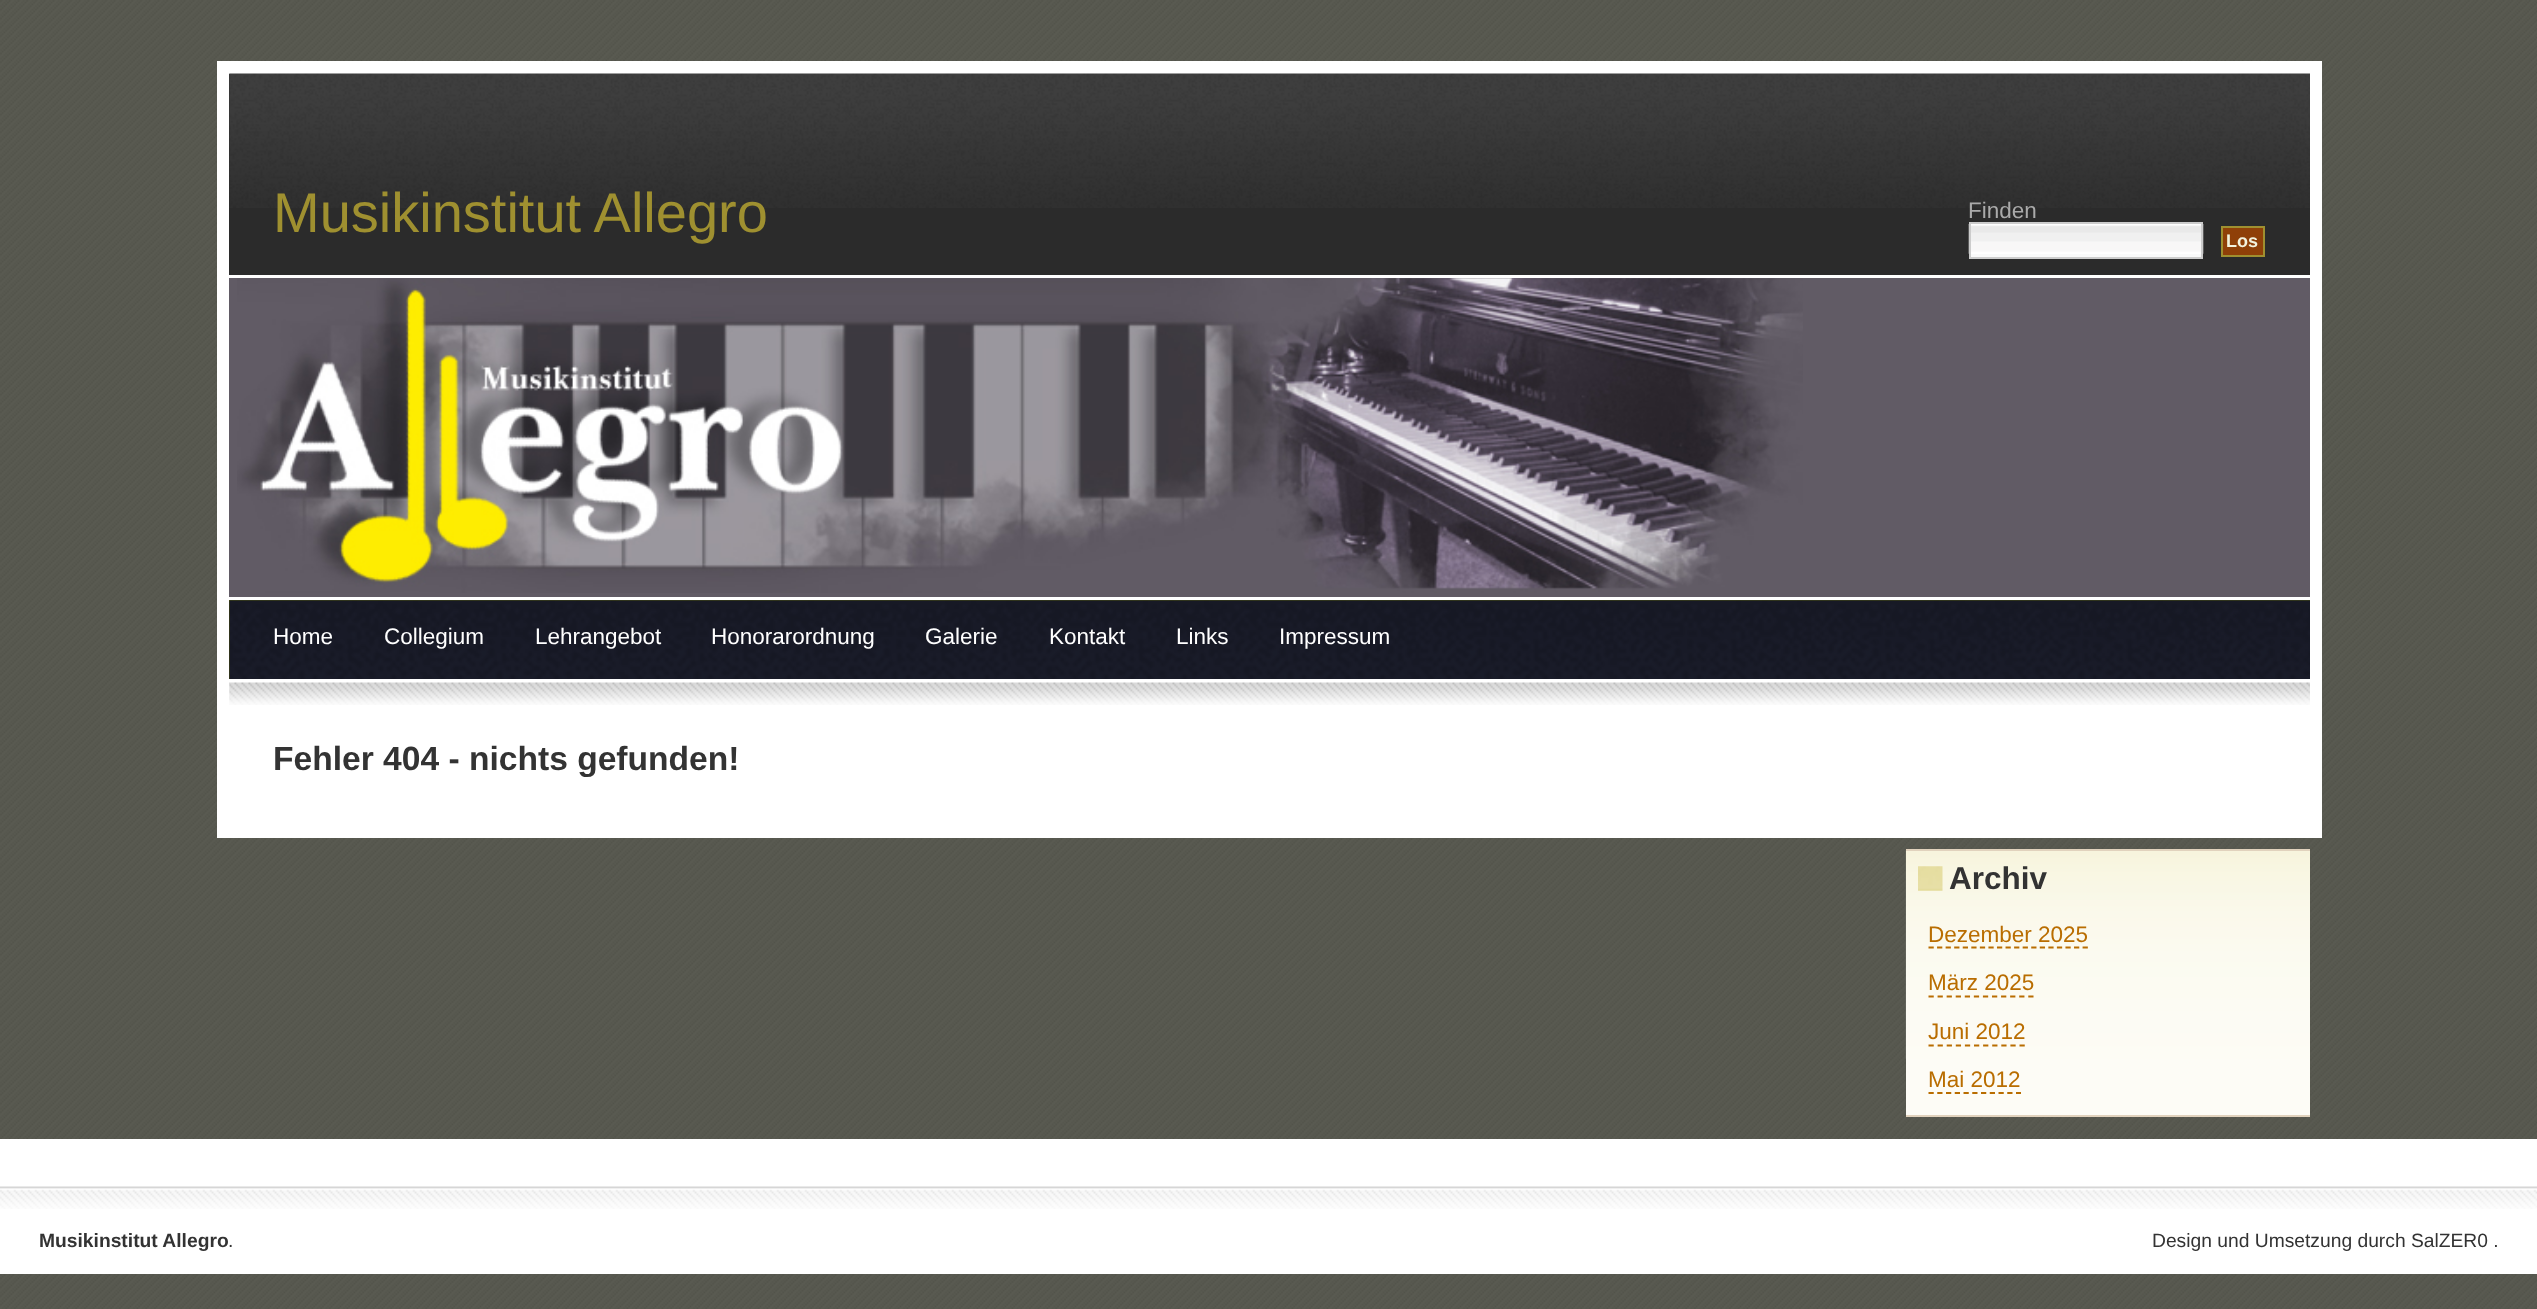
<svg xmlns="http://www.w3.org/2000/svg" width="2537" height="1309">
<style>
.a{font:56px Liberation Sans;fill:#9f9030}
.b{font:22.5px Liberation Sans;fill:#aaa}
.c{font:bold 18px Liberation Sans;fill:#f2f3de}
.d{font:22.5px Liberation Sans;fill:#fff}
.e{font:bold 33.6px Liberation Sans;fill:#333}
.f{font:bold 31.5px Liberation Sans;fill:#333}
.g{font:22.5px Liberation Sans;fill:#b96d00}
.h{font:bold 19.25px Liberation Sans;fill:#333}
.i{font:19.25px Liberation Sans;fill:#333}
</style>
<rect width="100%" height="100%" fill="#fff"/>
<image href="1.png" x="0" y="0" width="2537" height="1309"/>
<path fill="#fff" d="M217 61h2105v777H217z"/>
<path fill="#2b2b2b" d="M229 74h2081v201H229z"/>
<image href="2.png" x="229" y="73" width="2081" height="135"/>
<path fill="#f9f9f9" d="M1971 253h230v4H1971z"/>
<image href="3.png" x="1968" y="224" width="236" height="30"/>
<path fill="none" stroke="#ccc" stroke-width="2" d="M1970 223h232v35H1970z"/>
<path fill="#8f4008" stroke="#9f9030" stroke-width="2" d="M2222 227h42v29H2222z"/>
<path fill="#615b65" d="M229 278h2081v319H229z"/>
<image href="4.png" x="237" y="278" width="1566" height="315"/>
<path fill="#7f8400" d="M229 600h2081v79H229z"/>
<image href="5.png" x="229" y="600" width="2081" height="79"/>
<image href="6.png" x="229" y="682" width="2081" height="23"/>
<path fill="#fdfcf6" d="M1906 1058h404v57H1906z"/>
<image href="7.png" x="1905" y="850" width="405" height="209"/>
<path fill="#e1d2bd" d="M1906 849h404v2H1906z"/>
<path fill="#e1d2bd" d="M1906 1115h404v2H1906z"/>
<image href="8.png" x="1918" y="866" width="25" height="25"/>
<path fill="none" stroke="#b96d00" stroke-width="1.8" stroke-dasharray="5.25 3.31" d="M1928.5 947.5h159.5"/>
<path fill="none" stroke="#b96d00" stroke-width="1.8" stroke-dasharray="5.25 3.82" d="M1928.5 996.5h105"/>
<path fill="none" stroke="#b96d00" stroke-width="1.8" stroke-dasharray="5.25 3.85" d="M1928.5 1045.5h96.5"/>
<path fill="none" stroke="#b96d00" stroke-width="1.8" stroke-dasharray="5.25 3.5" d="M1928.5 1093h92.5"/>
<path fill="#fff" d="M0 1139h2537v135H0z"/>
<image href="9.png" x="0" y="1186" width="2537" height="23"/>
<text class="a" x="273" y="232">Musikinstitut Allegro</text>
<text class="b" x="1968" y="218">Finden</text>
<text class="c" x="2226" y="247">Los</text>
<text class="d" x="273" y="644">Home</text>
<text class="d" x="384" y="644">Collegium</text>
<text class="d" x="535" y="644">Lehrangebot</text>
<text class="d" x="711" y="644">Honorarordnung</text>
<text class="d" x="925" y="644">Galerie</text>
<text class="d" x="1049" y="644">Kontakt</text>
<text class="d" x="1176" y="644">Links</text>
<text class="d" x="1279" y="644">Impressum</text>
<text class="e" x="273" y="770">Fehler 404 - nichts gefunden!</text>
<text class="f" x="1949" y="889">Archiv</text>
<text class="g" x="1928" y="942">Dezember 2025</text>
<text class="g" x="1928" y="990">März 2025</text>
<text class="g" x="1928" y="1039">Juni 2012</text>
<text class="g" x="1928" y="1087">Mai 2012</text>
<text class="h" x="39" y="1247">Musikinstitut Allegro</text>
<text class="i" x="228" y="1247">.</text>
<text class="i" x="2152" y="1247">Design und Umsetzung durch SalZER0 .</text>
</svg>
